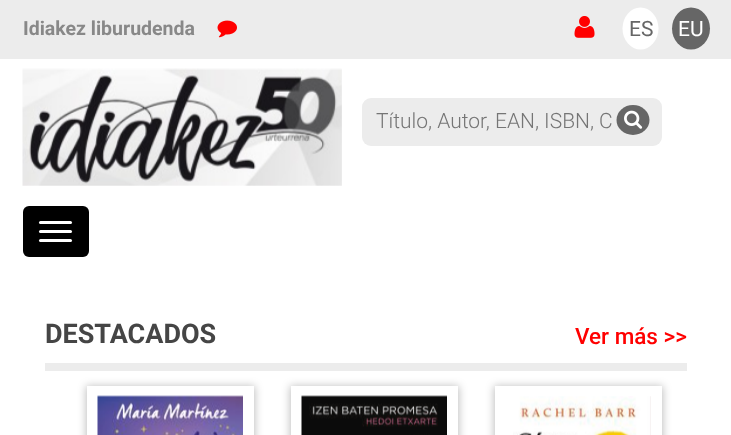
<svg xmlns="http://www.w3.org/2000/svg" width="731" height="435">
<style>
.a{font:bold 19.5px Roboto;fill:#888}
.b{font:21px Roboto;fill:#666}
.c{font:21px Roboto;fill:#fff}
.d{font:300 21px Roboto;fill:#757575}
.e{font:bold 27px Roboto;fill:#454545}
.f{font:500 22.5px Roboto;fill:#f00}
</style>
<defs>
<clipPath id="clip1"><path d="M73 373h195v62h-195zm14 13h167v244h-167z" clip-rule="evenodd"/></clipPath>
<clipPath id="clip2"><path d="M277 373h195v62h-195zm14 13h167v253h-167z" clip-rule="evenodd"/></clipPath>
<clipPath id="clip3"><path d="M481 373h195v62h-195zm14 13h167v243h-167z" clip-rule="evenodd"/></clipPath>
</defs>
<rect width="100%" height="100%" fill="#fff"/>
<path fill="#ececec" d="M0 0h731v59H0z"/>
<image href="1.png" x="217" y="20" width="20" height="18"/>
<image href="2.png" x="574" y="16" width="21" height="22"/>
<ellipse fill="#fff" cx="640.5" cy="28.5" rx="18" ry="21"/>
<ellipse fill="#666" cx="691" cy="28.5" rx="19" ry="21"/>
<image href="3.png" x="22" y="68" width="320" height="118"/>
<rect fill="#ececec" x="362" y="98" width="300" height="48" rx="9"/>
<ellipse fill="#666" cx="633" cy="120" rx="16.5" ry="15"/>
<image href="4.png" x="624" y="110" width="19" height="19"/>
<rect fill="#000" x="23" y="206" width="66" height="51" rx="6"/>
<rect fill="#fff" x="39" y="221" width="33" height="3" rx="1.5"/>
<rect fill="#fff" x="39" y="230" width="33" height="3" rx="1.5"/>
<rect fill="#fff" x="39" y="239" width="33" height="3" rx="1.5"/>
<path fill="#ececec" d="M45 363h642v8H45z"/>
<g clip-path="url(#clip1)">
<path fill="#00000040" filter="blur(4px)" d="M86 386h169v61H86z"/>
</g>
<image href="5.png" x="97" y="395" width="146" height="40"/>
<g clip-path="url(#clip2)">
<path fill="#00000040" filter="blur(4px)" d="M290 386h169v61H290z"/>
</g>
<image href="6.png" x="301" y="395" width="146" height="40"/>
<g clip-path="url(#clip3)">
<path fill="#00000040" filter="blur(4px)" d="M494 386h169v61H494z"/>
</g>
<image href="7.png" x="513" y="396" width="138" height="39"/>
<text class="a" x="23" y="35">Idiakez liburudenda</text>
<text class="b" x="629" y="36">ES</text>
<text class="c" x="678" y="36">EU</text>
<text class="d" x="376" y="128">Título, Autor, EAN, ISBN, C</text>
<text class="e" x="45" y="343">DESTACADOS</text>
<text class="f" x="575" y="344">Ver más &gt;&gt;</text>
</svg>
